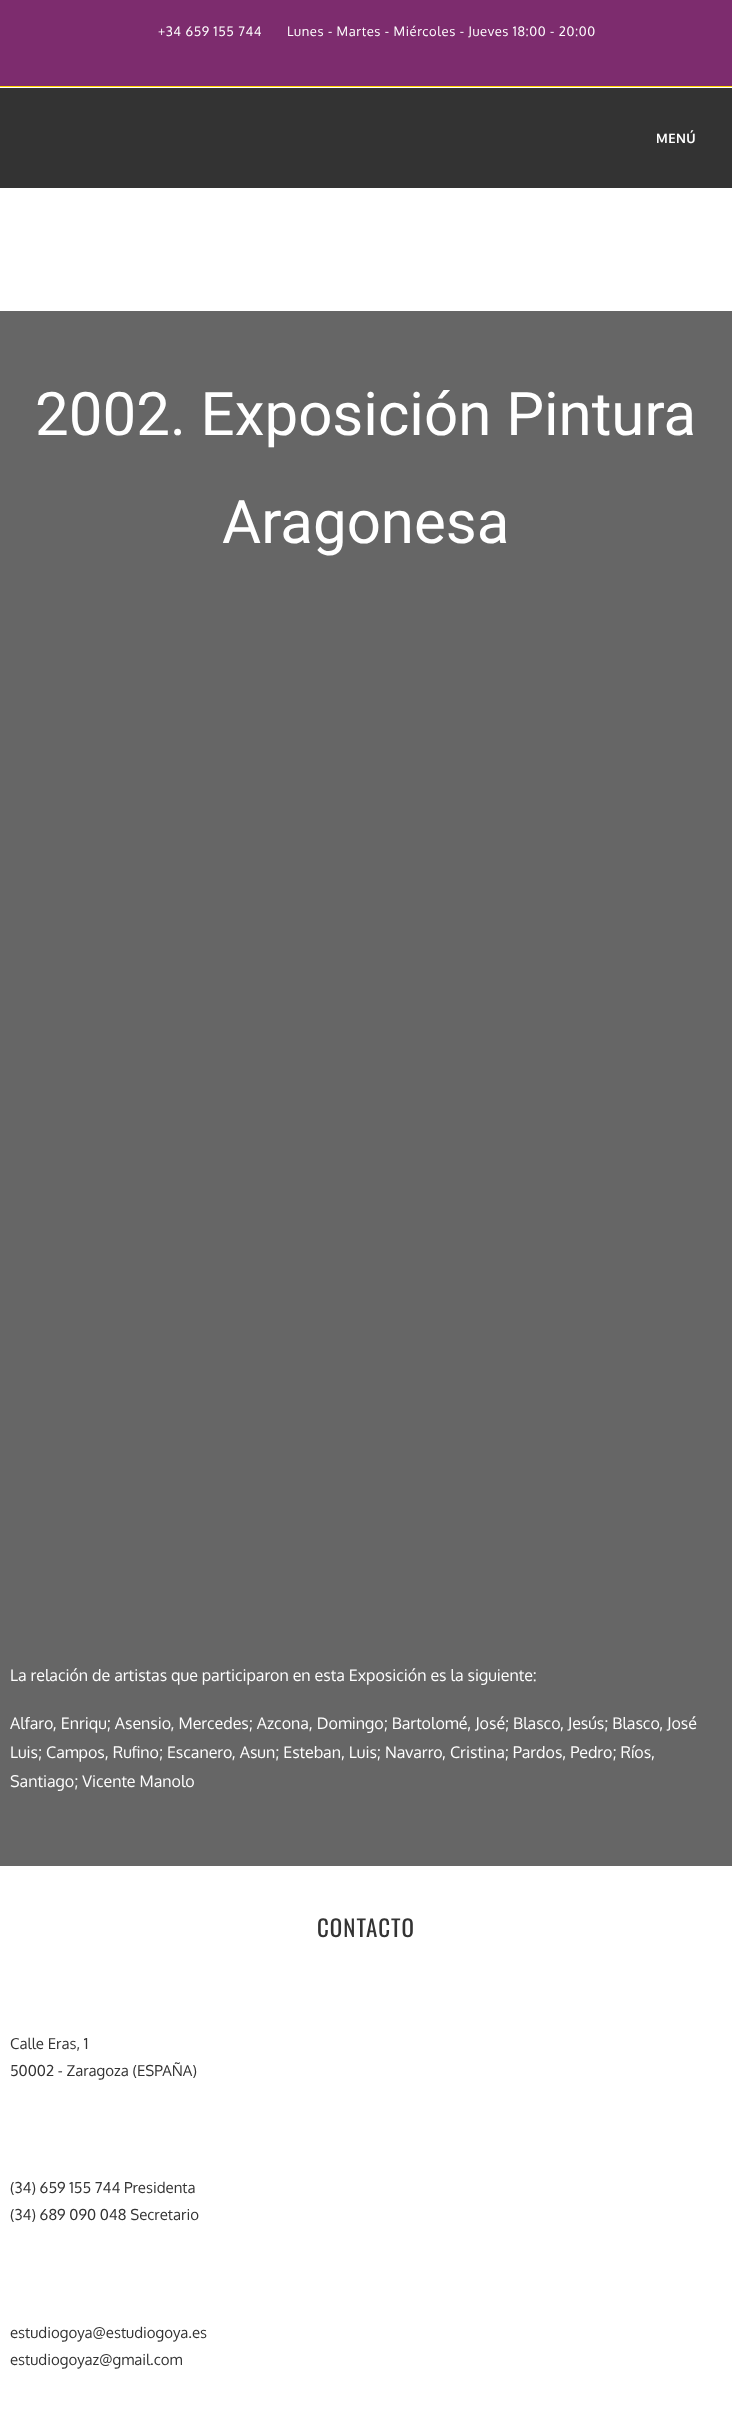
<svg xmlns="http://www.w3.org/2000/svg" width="732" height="2419">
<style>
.a{font:13px Oxygen;letter-spacing:0.6px;fill:#fff}
.b{font:bold 13px Oxygen;letter-spacing:0.5px;fill:#fff}
.c{font:60px Roboto;fill:#fff}
.d{font:16px Oxygen;fill:#fff}
.e{font:23px Oswald;letter-spacing:1px;fill:#333}
.f{font:15px Oxygen;fill:#333}
</style>
<rect width="100%" height="100%" fill="#fff"/>
<path fill="#7d2c6e" d="M0 0h732v86H0z"/>
<path fill="#ffd500" d="M0 86h732v1H0z"/>
<path fill="#333" d="M0 88h732v100H0z"/>
<path fill="#666" d="M0 311h732v1555H0z"/>
<text class="a" x="158" y="36">+34 659 155 744</text>
<text class="a" x="287" y="36">Lunes - Martes - Miércoles - Jueves 18:00 - 20:00</text>
<text class="b" x="656" y="143">MENÚ</text>
<text class="c" x="35" y="435">2002. Exposición Pintura</text>
<text class="c" x="222" y="543">Aragonesa</text>
<text class="d" x="10" y="1681">La relación de artistas que participaron en esta Exposición es la siguiente:</text>
<text class="d" x="10" y="1729">Alfaro, Enriqu; Asensio, Mercedes; Azcona, Domingo; Bartolomé, José; Blasco, Jesús; Blasco, José</text>
<text class="d" x="10" y="1758">Luis; Campos, Rufino; Escanero, Asun; Esteban, Luis; Navarro, Cristina; Pardos, Pedro; Ríos,</text>
<text class="d" x="10" y="1787">Santiago; Vicente Manolo</text>
<text class="e" x="317" y="1937">CONTACTO</text>
<text class="f" x="10" y="2049">Calle Eras, 1</text>
<text class="f" x="10" y="2076">50002 - Zaragoza (ESPAÑA)</text>
<text class="f" x="10" y="2193">(34) 659 155 744 Presidenta</text>
<text class="f" x="10" y="2220">(34) 689 090 048 Secretario</text>
<text class="f" x="10" y="2338">estudiogoya@estudiogoya.es</text>
<text class="f" x="10" y="2365">estudiogoyaz@gmail.com</text>
</svg>
